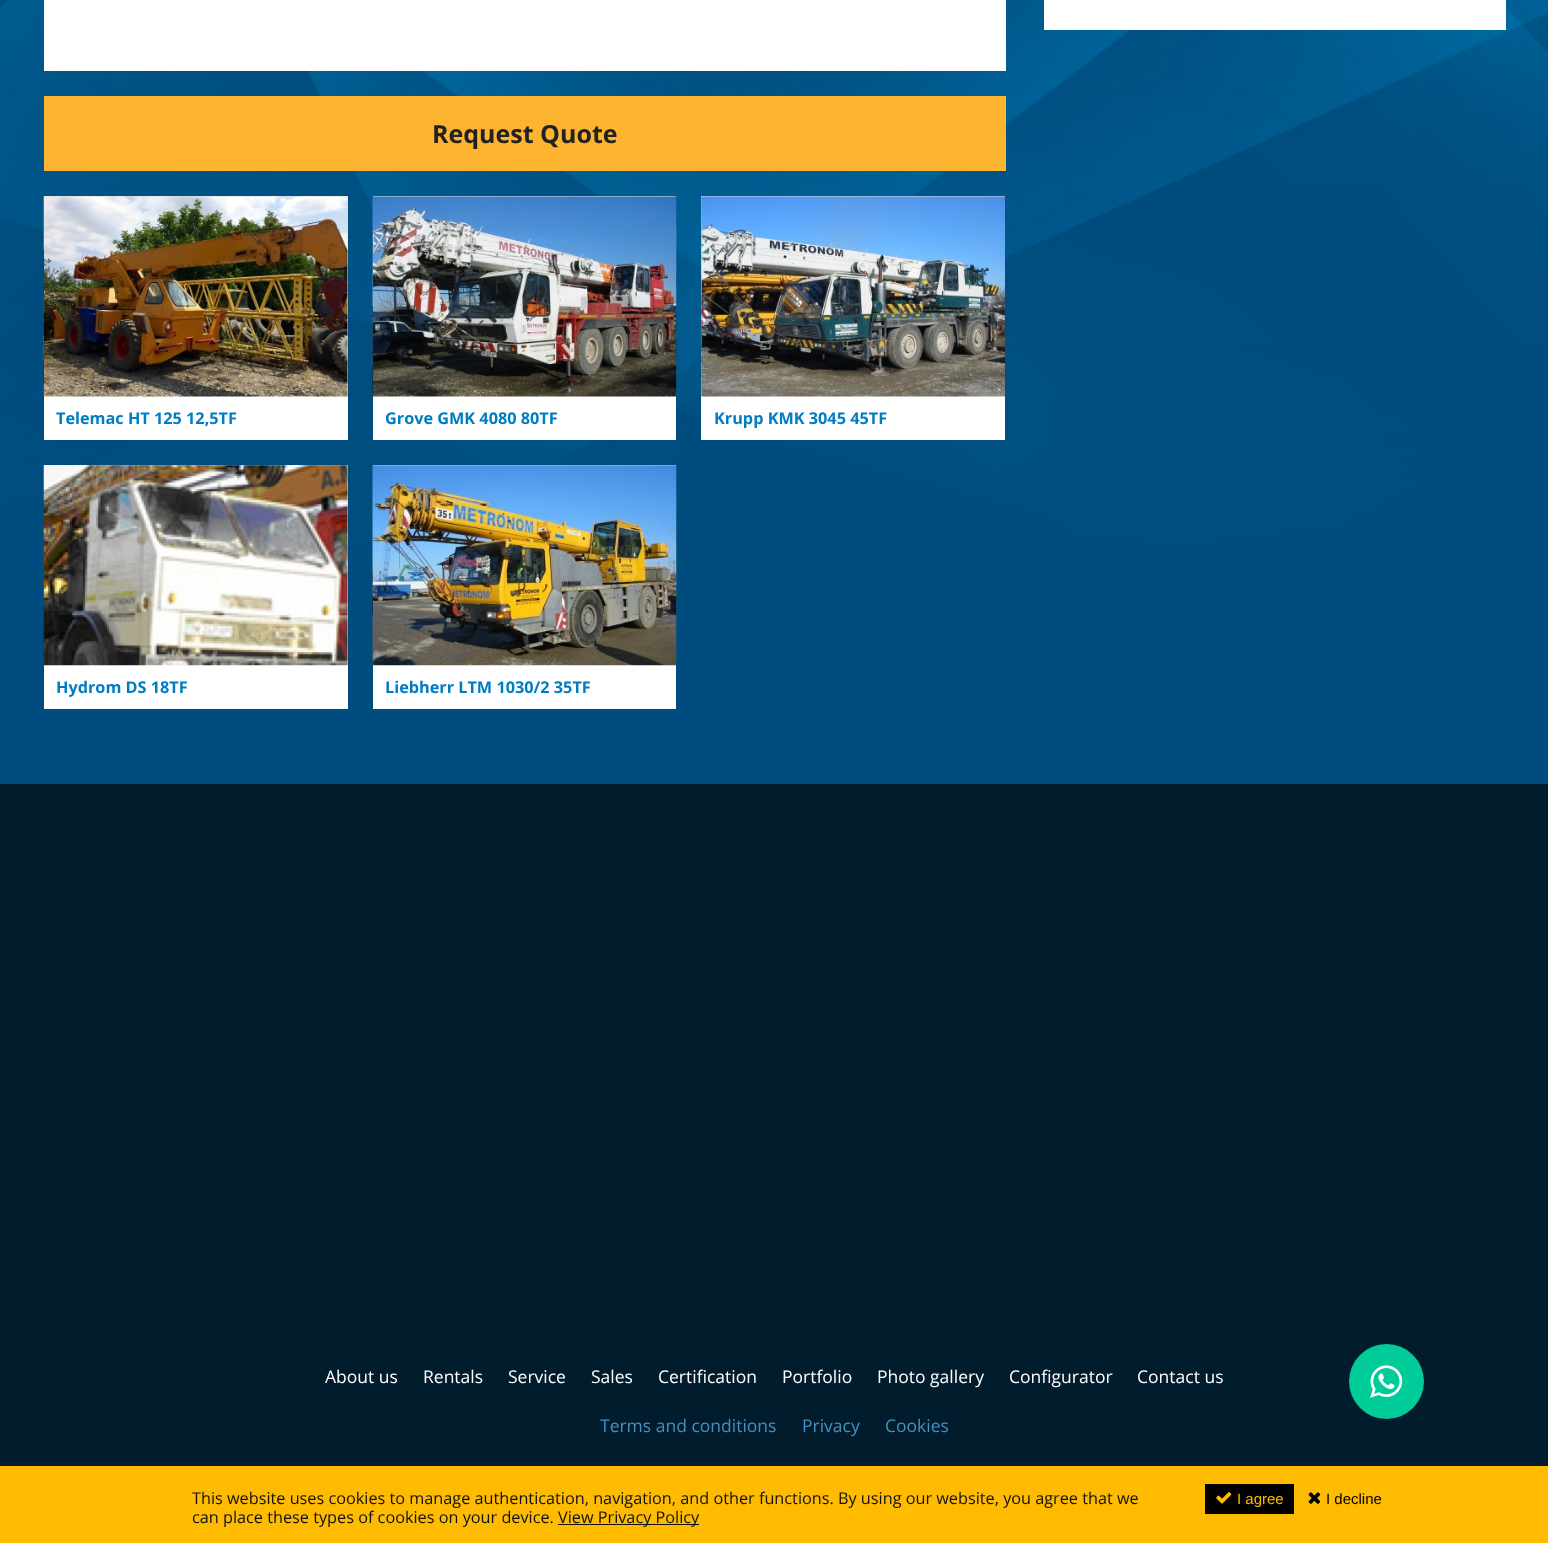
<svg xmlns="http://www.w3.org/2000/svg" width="1548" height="1543">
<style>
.a{font:bold 25px Open Sans;fill:#222}
.b{font:bold 16.25px Open Sans;fill:#007cc3}
.c{font:17.5px Open Sans;fill:#fff}
.d{font:17.5px Open Sans;fill:#4490c0}
.e{font:16.25px Open Sans;fill:#111}
.f{font:15px Liberation Sans;fill:#fb0}
.g{font:15px Liberation Sans;fill:#000}
</style>
<rect width="100%" height="100%" fill="#011c2d"/>
<image href="1.png" x="0" y="0" width="1548" height="784"/>
<path fill="#fff" d="M1044 0h462v30H1044z"/>
<path fill="#fff" d="M44 0h962v71H44z"/>
<path fill="#fdb431" d="M44 96h962v75H44z"/>
<path fill="#fff" d="M44 396h304v44H44z"/>
<path fill="#ddd" d="M44 196h304v200H44z"/>
<image href="2.png" x="43" y="196" width="305" height="201"/>
<path fill="#fff" d="M373 396h303v44H373z"/>
<path fill="#ddd" d="M373 196h303v1H373z"/>
<image href="3.png" x="372" y="196" width="305" height="201"/>
<path fill="#fff" d="M701 396h304v44H701z"/>
<path fill="#ddd" d="M701 196h304v200H701z"/>
<image href="4.png" x="701" y="196" width="304" height="201"/>
<path fill="#fff" d="M44 665h304v44H44z"/>
<path fill="#ddd" d="M44 465h304v200H44z"/>
<image href="5.png" x="43" y="465" width="305" height="201"/>
<path fill="#fff" d="M373 465h303v244H373z"/>
<image href="6.png" x="372" y="465" width="305" height="201"/>
<path fill="#fb0" d="M0 1466h1548v77H0z"/>
<path fill="#111" d="M558 1524h141v1H558z"/>
<path fill="#000" d="M1205 1484h89v30H1205z"/>
<image href="7.png" x="1216" y="1492" width="16" height="12"/>
<image href="8.png" x="1308" y="1492" width="13" height="12"/>
<circle fill="#0c9" cx="1386.5" cy="1381.5" r="37.5"/>
<image href="9.png" x="1370" y="1365" width="33" height="33"/>
<text class="a" x="432" y="143">Request Quote</text>
<text class="b" x="56" y="424">Telemac HT 125 12,5TF</text>
<text class="b" x="385" y="424">Grove GMK 4080 80TF</text>
<text class="b" x="714" y="424">Krupp KMK 3045 45TF</text>
<text class="b" x="56" y="693">Hydrom DS 18TF</text>
<text class="b" x="385" y="693">Liebherr LTM 1030/2 35TF</text>
<text class="c" x="325" y="1383">About us</text>
<text class="c" x="423" y="1383">Rentals</text>
<text class="c" x="508" y="1383">Service</text>
<text class="c" x="591" y="1383">Sales</text>
<text class="c" x="658" y="1383">Certification</text>
<text class="c" x="782" y="1383">Portfolio</text>
<text class="c" x="877" y="1383">Photo gallery</text>
<text class="c" x="1009" y="1383">Configurator</text>
<text class="c" x="1137" y="1383">Contact us</text>
<text class="d" x="600" y="1432">Terms and conditions</text>
<text class="d" x="802" y="1432">Privacy</text>
<text class="d" x="885" y="1432">Cookies</text>
<text class="e" x="192" y="1504">This website uses cookies to manage authentication, navigation, and other functions. By using our website, you agree that we</text>
<text class="e" x="192" y="1523">can place these types of cookies on your device.</text>
<text class="e" x="558" y="1523">View Privacy Policy</text>
<text class="f" x="1237" y="1504">I agree</text>
<text class="g" x="1326" y="1504">I decline</text>
</svg>
